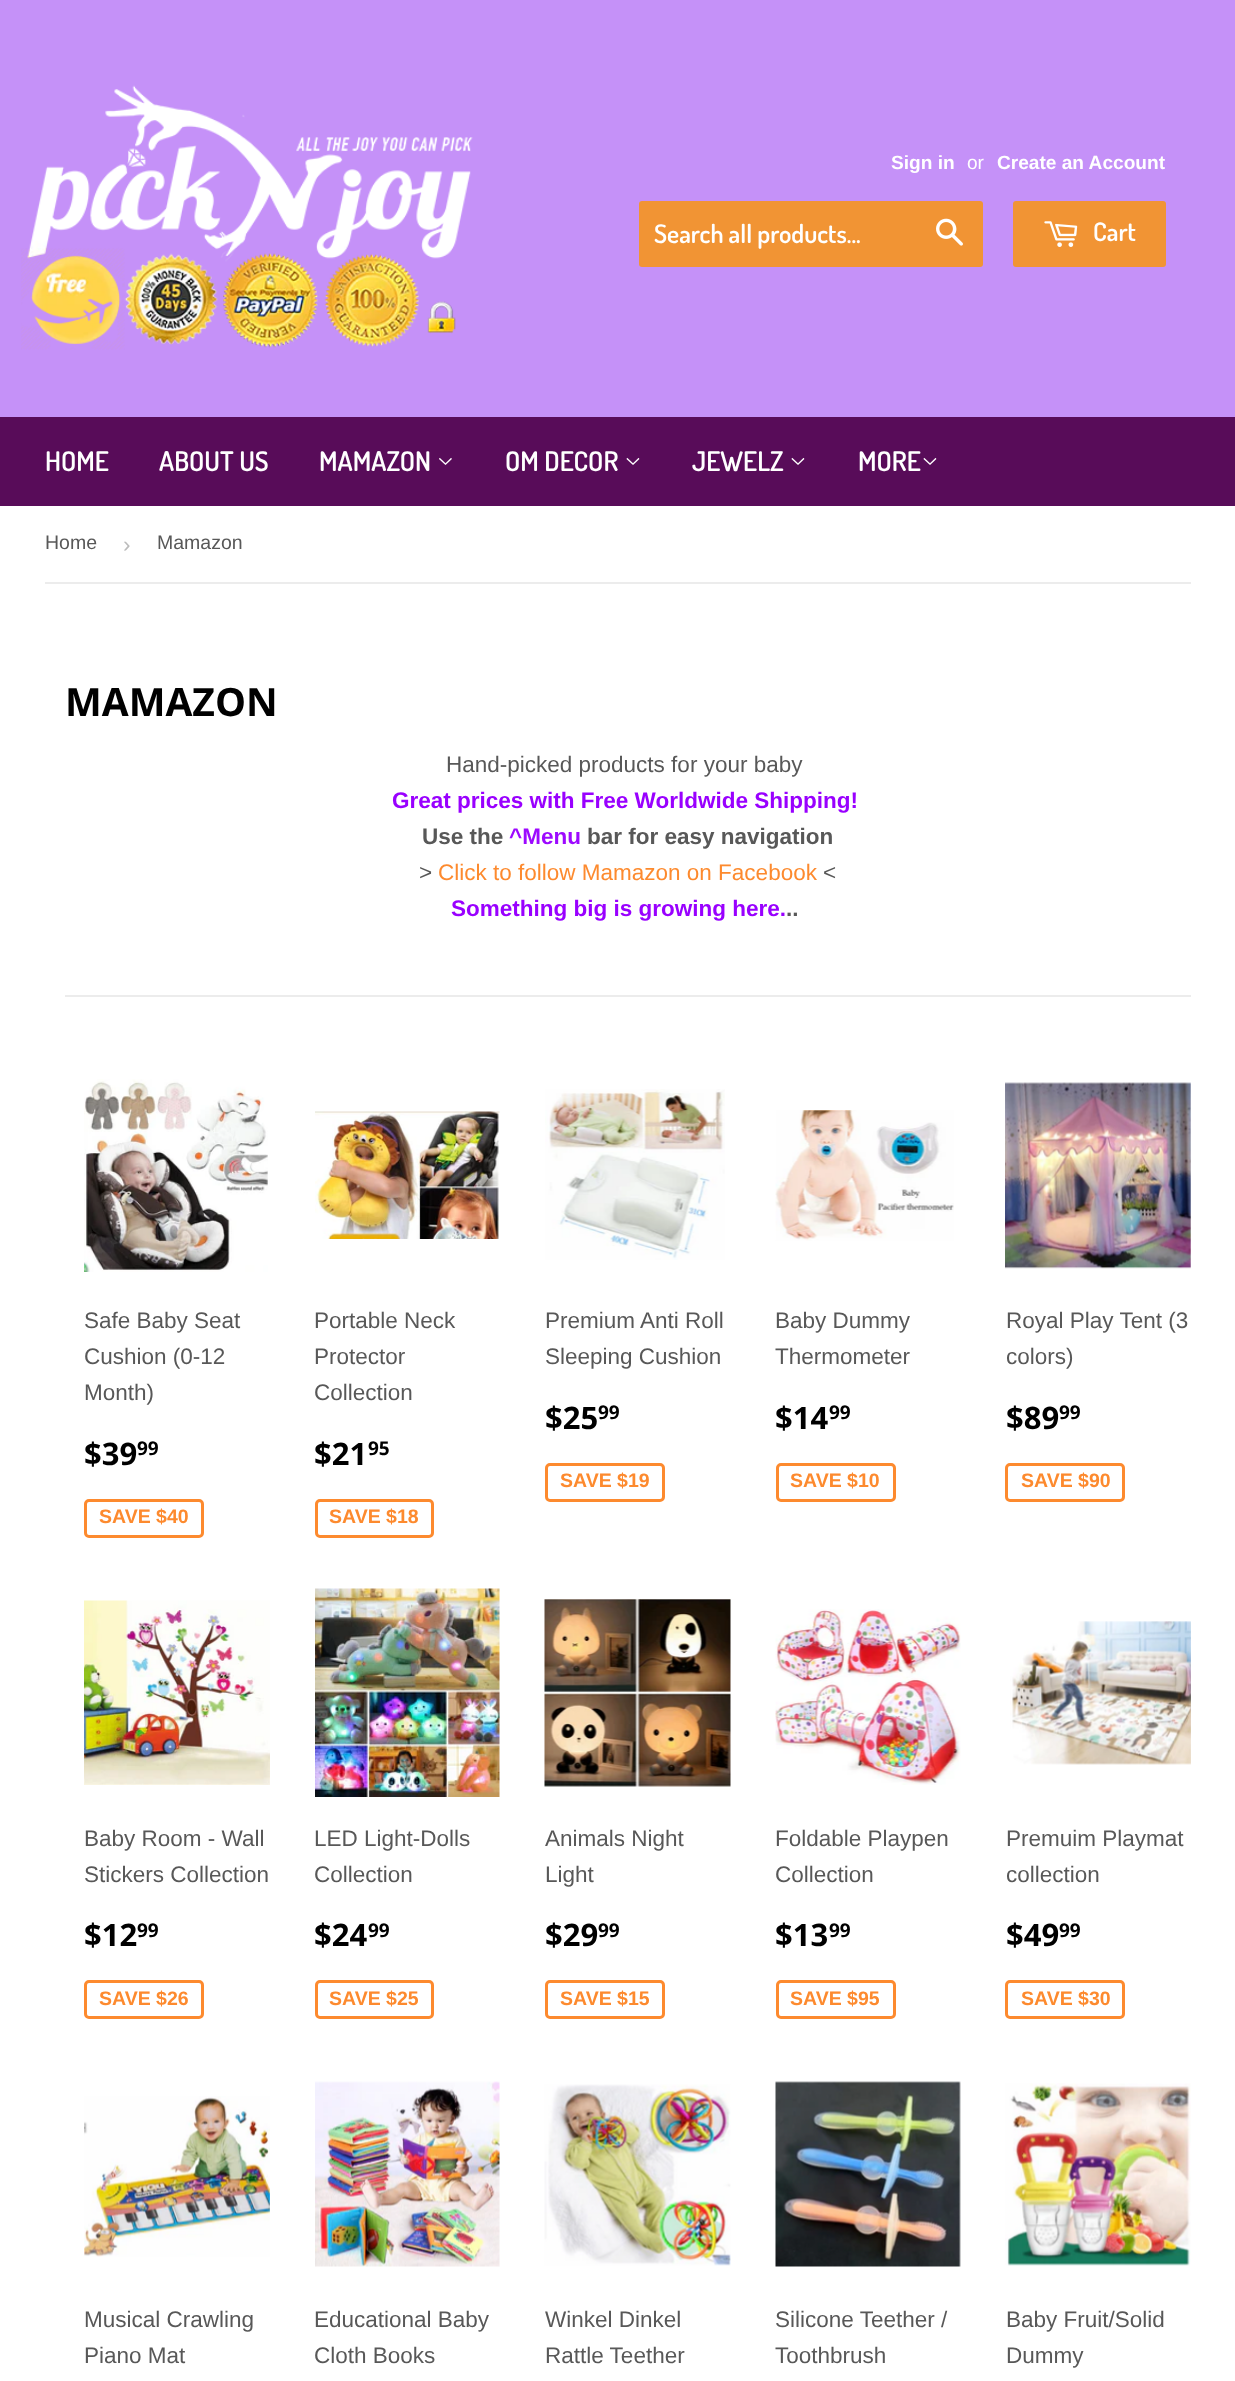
<svg xmlns="http://www.w3.org/2000/svg" width="1235" height="2381">
<style>
.a{font:bold 19.1px Liberation Sans;fill:#fff}
.b{font:19.1px Liberation Sans;fill:#fff}
.c{font:600 25.5px Dosis;fill:#fff}
.d{font:600 27px Dosis;fill:#fff}
.e{font:19.5px Liberation Sans;fill:#585858}
.f{font:22.5px Liberation Sans;fill:#bbb}
.g{font:bold 39px Open Sans;fill:#000}
.h{font:22.5px Liberation Sans;fill:#585858}
.i{font:bold 22.5px Liberation Sans;fill:#90f}
.j{font:bold 22.5px Liberation Sans;fill:#585858}
.k{font:bold 22.5px Liberation Sans;fill:#9d09ff}
.l{font:22.5px Liberation Sans;fill:#fd8a2e}
.m{font:bold 31px Open Sans;fill:#000}
.n{font:bold 19px Open Sans;fill:#000}
.o{font:bold 19.5px Liberation Sans;fill:#fd8a2e}
</style>
<rect width="100%" height="100%" fill="#fff"/>
<path fill="#c591f8" d="M0 0h1235v417H0z"/>
<image href="1.png" x="21" y="85" width="452" height="265"/>
<rect fill="#f19434" x="639" y="201" width="344" height="66" rx="3"/>
<image href="2.png" x="936" y="218" width="27" height="28"/>
<rect fill="#f19434" x="1013" y="201" width="153" height="66" rx="3"/>
<image href="3.png" x="1044" y="221" width="34" height="26"/>
<path fill="#580c59" d="M0 417h1235v89H0z"/>
<image href="4.png" x="439" y="457" width="13" height="8"/>
<image href="5.png" x="626" y="457" width="14" height="8"/>
<image href="5.png" x="791" y="457" width="14" height="8"/>
<image href="5.png" x="923" y="457" width="14" height="8"/>
<path fill="#ececec" d="M45 582h1146v2H45z"/>
<path fill="#ececec" d="M65 995h1126v2H65z"/>
<image href="6.png" x="84" y="1079" width="184" height="193"/>
<rect fill="none" stroke="#fd8a2e" stroke-width="3" x="85.5" y="1500.5" width="117" height="36" rx="3.5"/>
<image href="7.png" x="315" y="1111" width="185" height="128"/>
<rect fill="none" stroke="#fd8a2e" stroke-width="3" x="316.5" y="1500.5" width="116" height="36" rx="3.5"/>
<image href="8.png" x="545" y="1089" width="180" height="171"/>
<rect fill="none" stroke="#fd8a2e" stroke-width="3" x="546.5" y="1464.5" width="117" height="36" rx="3.5"/>
<image href="9.png" x="775" y="1110" width="179" height="131"/>
<rect fill="none" stroke="#fd8a2e" stroke-width="3" x="777.5" y="1464.5" width="117" height="36" rx="3.5"/>
<image href="10.png" x="1005" y="1082" width="186" height="187"/>
<rect fill="none" stroke="#fd8a2e" stroke-width="3" x="1006.5" y="1464.5" width="117" height="36" rx="3.5"/>
<image href="11.png" x="84" y="1600" width="186" height="185"/>
<rect fill="none" stroke="#fd8a2e" stroke-width="3" x="85.5" y="1981.5" width="117" height="36" rx="3.5"/>
<image href="12.png" x="315" y="1588" width="185" height="209"/>
<rect fill="none" stroke="#fd8a2e" stroke-width="3" x="316.5" y="1981.5" width="116" height="36" rx="3.5"/>
<image href="13.png" x="544" y="1599" width="187" height="188"/>
<rect fill="none" stroke="#fd8a2e" stroke-width="3" x="546.5" y="1981.5" width="117" height="36" rx="3.5"/>
<image href="14.png" x="775" y="1609" width="186" height="176"/>
<rect fill="none" stroke="#fd8a2e" stroke-width="3" x="777.5" y="1981.5" width="117" height="36" rx="3.5"/>
<image href="15.png" x="1010" y="1621" width="181" height="144"/>
<rect fill="none" stroke="#fd8a2e" stroke-width="3" x="1006.5" y="1981.5" width="117" height="36" rx="3.5"/>
<image href="16.png" x="84" y="2096" width="186" height="161"/>
<image href="17.png" x="315" y="2081" width="185" height="186"/>
<image href="18.png" x="544" y="2084" width="187" height="182"/>
<image href="19.png" x="775" y="2081" width="186" height="186"/>
<image href="20.png" x="1005" y="2083" width="186" height="183"/>
<text class="a" x="891" y="169">Sign in</text>
<text class="b" x="967" y="169">or</text>
<text class="a" x="997" y="169">Create an Account</text>
<text class="c" x="654" y="243">Search all products...</text>
<text class="c" x="1093" y="241">Cart</text>
<text class="d" x="45" y="471">HOME</text>
<text class="d" x="159" y="471">ABOUT US</text>
<text class="d" x="319" y="471">MAMAZON</text>
<text class="d" x="505" y="471">OM DECOR</text>
<text class="d" x="692" y="471">JEWELZ</text>
<text class="d" x="858" y="471">MORE</text>
<text class="e" x="45" y="549">Home</text>
<text class="f" x="123" y="552">›</text>
<text class="e" x="157" y="549">Mamazon</text>
<text class="g" x="65" y="716">MAMAZON</text>
<text class="h" x="446" y="772">Hand-picked products for your baby</text>
<text class="i" x="392" y="808">Great prices with Free Worldwide Shipping!</text>
<text class="j" x="422" y="844">Use the</text>
<text class="k" x="509" y="844">^Menu</text>
<text class="j" x="587" y="844">bar for easy navigation</text>
<text class="h" x="419" y="880">&gt;</text>
<text class="l" x="438" y="880">Click to follow Mamazon on Facebook</text>
<text class="h" x="823" y="880">&lt;</text>
<text class="i" x="451" y="916">Something big is growing here.</text>
<text class="j" x="786" y="916">..</text>
<text class="h" x="84" y="1328">Safe Baby Seat</text>
<text class="h" x="84" y="1364">Cushion (0-12</text>
<text class="h" x="84" y="1400">Month)</text>
<text class="m" x="84" y="1465">$39</text>
<text class="n" x="137" y="1455">99</text>
<text class="o" x="99" y="1523">SAVE $40</text>
<text class="h" x="314" y="1328">Portable Neck</text>
<text class="h" x="314" y="1364">Protector</text>
<text class="h" x="314" y="1400">Collection</text>
<text class="m" x="314" y="1465">$21</text>
<text class="n" x="368" y="1455">95</text>
<text class="o" x="329" y="1523">SAVE $18</text>
<text class="h" x="545" y="1328">Premium Anti Roll</text>
<text class="h" x="545" y="1364">Sleeping Cushion</text>
<text class="m" x="545" y="1429">$25</text>
<text class="n" x="598" y="1419">99</text>
<text class="o" x="560" y="1487">SAVE $19</text>
<text class="h" x="775" y="1328">Baby Dummy</text>
<text class="h" x="775" y="1364">Thermometer</text>
<text class="m" x="775" y="1429">$14</text>
<text class="n" x="829" y="1419">99</text>
<text class="o" x="790" y="1487">SAVE $10</text>
<text class="h" x="1006" y="1328">Royal Play Tent (3</text>
<text class="h" x="1006" y="1364">colors)</text>
<text class="m" x="1006" y="1429">$89</text>
<text class="n" x="1059" y="1419">99</text>
<text class="o" x="1021" y="1487">SAVE $90</text>
<text class="h" x="84" y="1846">Baby Room - Wall</text>
<text class="h" x="84" y="1882">Stickers Collection</text>
<text class="m" x="84" y="1946">$12</text>
<text class="n" x="137" y="1937">99</text>
<text class="o" x="99" y="2005">SAVE $26</text>
<text class="h" x="314" y="1846">LED Light-Dolls</text>
<text class="h" x="314" y="1882">Collection</text>
<text class="m" x="314" y="1946">$24</text>
<text class="n" x="368" y="1937">99</text>
<text class="o" x="329" y="2005">SAVE $25</text>
<text class="h" x="545" y="1846">Animals Night</text>
<text class="h" x="545" y="1882">Light</text>
<text class="m" x="545" y="1946">$29</text>
<text class="n" x="598" y="1937">99</text>
<text class="o" x="560" y="2005">SAVE $15</text>
<text class="h" x="775" y="1846">Foldable Playpen</text>
<text class="h" x="775" y="1882">Collection</text>
<text class="m" x="775" y="1946">$13</text>
<text class="n" x="829" y="1937">99</text>
<text class="o" x="790" y="2005">SAVE $95</text>
<text class="h" x="1006" y="1846">Premuim Playmat</text>
<text class="h" x="1006" y="1882">collection</text>
<text class="m" x="1006" y="1946">$49</text>
<text class="n" x="1059" y="1937">99</text>
<text class="o" x="1021" y="2005">SAVE $30</text>
<text class="h" x="84" y="2327">Musical Crawling</text>
<text class="h" x="84" y="2363">Piano Mat</text>
<text class="h" x="314" y="2327">Educational Baby</text>
<text class="h" x="314" y="2363">Cloth Books</text>
<text class="h" x="545" y="2327">Winkel Dinkel</text>
<text class="h" x="545" y="2363">Rattle Teether</text>
<text class="h" x="775" y="2327">Silicone Teether /</text>
<text class="h" x="775" y="2363">Toothbrush</text>
<text class="h" x="1006" y="2327">Baby Fruit/Solid</text>
<text class="h" x="1006" y="2363">Dummy</text>
</svg>
